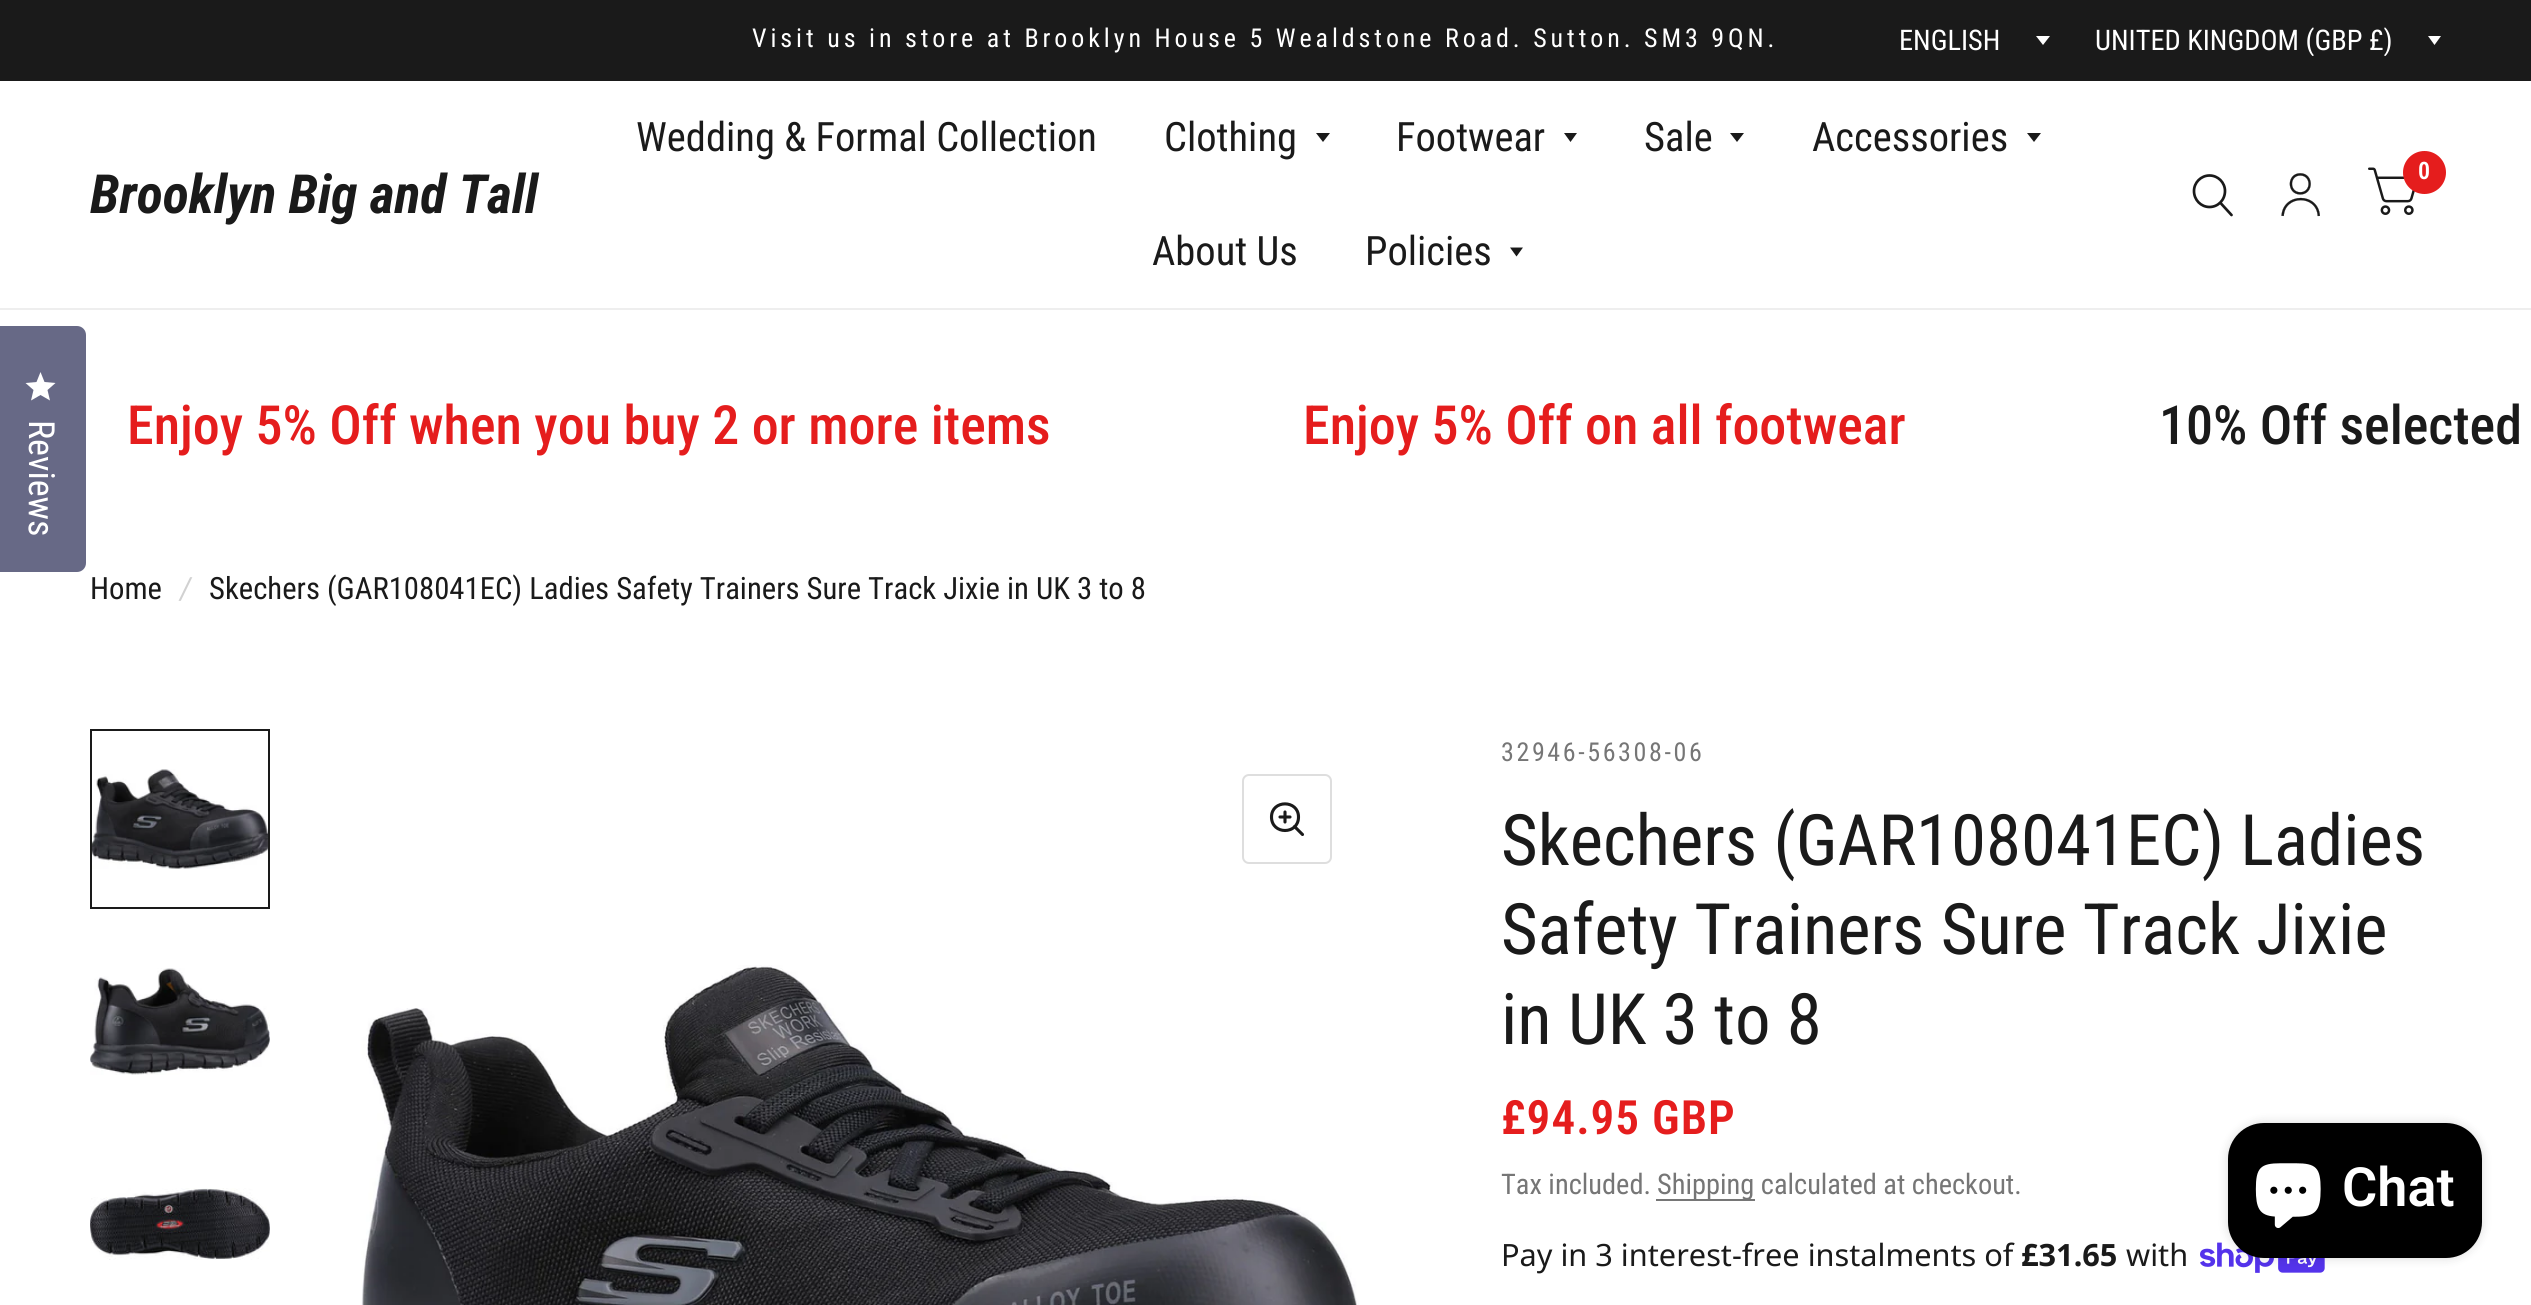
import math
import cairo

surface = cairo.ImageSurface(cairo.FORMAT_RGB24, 2531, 1305)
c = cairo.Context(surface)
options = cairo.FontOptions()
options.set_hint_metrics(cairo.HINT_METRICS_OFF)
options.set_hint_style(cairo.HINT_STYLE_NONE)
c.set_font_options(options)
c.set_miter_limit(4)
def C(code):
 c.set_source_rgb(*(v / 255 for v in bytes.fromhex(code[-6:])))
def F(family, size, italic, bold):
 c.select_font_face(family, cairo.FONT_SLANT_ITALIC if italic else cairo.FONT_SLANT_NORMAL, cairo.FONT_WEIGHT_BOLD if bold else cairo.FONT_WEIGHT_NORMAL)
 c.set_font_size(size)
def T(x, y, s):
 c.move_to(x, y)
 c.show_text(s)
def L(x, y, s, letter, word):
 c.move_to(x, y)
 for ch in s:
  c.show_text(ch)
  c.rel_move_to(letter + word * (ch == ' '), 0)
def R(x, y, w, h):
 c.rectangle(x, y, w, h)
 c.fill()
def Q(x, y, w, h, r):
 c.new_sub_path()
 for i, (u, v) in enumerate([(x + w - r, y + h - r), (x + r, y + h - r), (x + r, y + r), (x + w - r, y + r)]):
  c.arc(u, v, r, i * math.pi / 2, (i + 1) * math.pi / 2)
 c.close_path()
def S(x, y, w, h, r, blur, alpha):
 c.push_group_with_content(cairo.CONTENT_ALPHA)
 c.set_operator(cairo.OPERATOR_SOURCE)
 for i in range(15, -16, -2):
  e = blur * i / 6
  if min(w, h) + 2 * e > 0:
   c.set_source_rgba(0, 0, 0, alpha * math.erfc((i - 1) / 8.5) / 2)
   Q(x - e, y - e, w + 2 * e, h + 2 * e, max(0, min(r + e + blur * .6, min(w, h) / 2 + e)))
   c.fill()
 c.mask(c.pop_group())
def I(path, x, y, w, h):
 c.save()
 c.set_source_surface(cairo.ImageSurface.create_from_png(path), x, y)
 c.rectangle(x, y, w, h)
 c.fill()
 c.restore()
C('ffffff')
c.paint()
C('676986')
c.new_path()
c.move_to(-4,326)
c.line_to(77,326)
c.curve_to(82,326,86,330,86,335)
c.line_to(86,563)
c.curve_to(86,568,82,572,77,572)
c.line_to(-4,572)
c.close_path()
c.fill()
C('ffffff')
c.new_path()
c.move_to(40.5,395)
c.line_to(50,400.5)
c.line_to(47.5,390)
c.line_to(55.5,383)
c.line_to(44.5,382)
c.line_to(40.5,372)
c.line_to(36.5,382)
c.line_to(25.5,383)
c.line_to(33.5,390)
c.line_to(31,400.5)
c.close_path()
c.fill()
F('Roboto Condensed',36,0,0)
c.save()
c.translate(29,420)
c.rotate(90.1 * math.pi / 180)
T(0,0,'Reviews')
c.restore()
C('1a1a1a')
R(0,0,2531,81)
F('Roboto Condensed',26,0,0)
C('ffffff')
L(752,47,'Visit us in store at Brooklyn House 5 Wealdstone Road. Sutton. SM3 9QN.',3.9,-.25)
F('Roboto Condensed',28.4,0,0)
T(1899,50,'ENGLISH')
c.new_path()
c.move_to(2036,36)
c.line_to(2050,36)
c.line_to(2043,45)
c.close_path()
c.fill()
c.save()
c.rectangle(2095,23,324,33)
c.clip()
T(2095,50,'UNITED KINGDOM (GBP £)')
c.restore()
c.new_path()
c.move_to(2428,36)
c.line_to(2441,36)
c.line_to(2434.5,45)
c.close_path()
c.fill()
C('eeeeee')
R(0,308,2531,2)
F('Roboto Condensed',54,1,1)
C('1a1a1a')
T(90,213,'Brooklyn Big and Tall')
F('Roboto Condensed',40.5,0,0)
T(636,151,'Wedding & Formal Collection')
T(1164,151,'Clothing')
c.new_path()
c.move_to(1316,133)
c.line_to(1330,133)
c.line_to(1323,142)
c.close_path()
c.fill()
T(1396,151,'Footwear')
c.new_path()
c.move_to(1564,133)
c.line_to(1577,133)
c.line_to(1570.5,142)
c.close_path()
c.fill()
T(1644,151,'Sale')
c.new_path()
c.move_to(1730,133)
c.line_to(1744,133)
c.line_to(1737,142)
c.close_path()
c.fill()
T(1812,151,'Accessories')
c.new_path()
c.move_to(2027,133)
c.line_to(2041,133)
c.line_to(2034,142)
c.close_path()
c.fill()
T(1152,265,'About Us')
T(1365,265,'Policies')
c.new_path()
c.move_to(1510,247.5)
c.line_to(1523,247.5)
c.line_to(1516.5,256.5)
c.close_path()
c.fill()
I('1.png',2368,167,47,48)
C('e51d1d')
c.arc(2424.5,172.5,21.5,0,2 * math.pi)
c.fill()
F('Roboto Condensed SemiBold',24,0,0)
C('ffffff')
T(2418,179,'0')
c.new_path()
c.move_to(2221,203.5)
c.line_to(2231.5,215)
c.move_to(2225,191)
c.curve_to(2225,200,2218,207,2209.5,207)
c.curve_to(2201,207,2194,200,2194,191)
c.curve_to(2194,182.5,2201,175.5,2209.5,175.5)
c.curve_to(2218,175.5,2225,182.5,2225,191)
c.close_path()
C('1a1a1a')
c.set_line_width(2.7)
c.set_line_cap(cairo.LINE_CAP_ROUND)
c.set_line_join(cairo.LINE_JOIN_ROUND)
c.stroke()
I('2.png',2281,173,39,44)
F('Roboto Condensed Medium',54,0,0)
C('e51d1d')
T(127,444,'Enjoy 5% Off when you buy 2 or more items')
T(1303,444,'Enjoy 5% Off on all footwear')
C('1a1a1a')
T(2159,444,'10% Off selected')
F('Roboto Condensed',30.7,0,0)
T(90,599,'Home')
F('Roboto Condensed',30.7,1,0)
C('d1d1d1')
T(180,599,'/')
F('Roboto Condensed',30.7,0,0)
C('1a1a1a')
T(209,599,'Skechers (GAR108041EC) Ladies Safety Trainers Sure Track Jixie in UK 3 to 8')
I('3.png',92,769,176,100)
c.rectangle(91,730,178,178)
c.set_line_width(2)
c.set_line_cap(cairo.LINE_CAP_BUTT)
c.set_line_join(cairo.LINE_JOIN_MITER)
c.stroke()
I('4.png',90,968,180,107)
I('5.png',90,1188,180,72)
Q(1243,775,88,88,6)
C('dedede')
c.stroke()
c.new_path()
c.move_to(1280,817)
c.line_to(1290,817)
c.move_to(1285,812)
c.line_to(1285,822)
c.move_to(1294.5,826.5)
c.line_to(1302.5,834.5)
c.move_to(1298.5,817)
c.curve_to(1298.5,835,1271.5,835,1271.5,817)
c.curve_to(1271.5,799.5,1298.5,799.5,1298.5,817)
c.close_path()
C('1a1a1a')
c.set_line_width(3.1)
c.set_line_cap(cairo.LINE_CAP_ROUND)
c.set_line_join(cairo.LINE_JOIN_ROUND)
c.stroke()
I('6.png',361,965,998,340)
F('Roboto Condensed',26,0,0)
C('767676')
L(1501,761,'32946-56308-06',2.6,0)
F('Roboto Condensed',70.9,0,0)
C('1a1a1a')
T(1501,865,'Skechers (GAR108041EC) Ladies')
T(1501,954,'Safety Trainers Sure Track Jixie')
T(1501,1044,'in UK 3 to 8')
F('Roboto Condensed SemiBold',47.25,0,0)
C('e51d1d')
L(1501,1134,'£94.95 GBP',1,0)
F('Roboto Condensed',28.4,0,0)
C('767676')
T(1501,1194,'Tax included.')
R(1656,1199,99,2)
T(1657,1194,'Shipping calculated at checkout.')
F('Noto Sans',30.7,0,0)
C('1a1a1a')
T(1501,1266,'Pay in 3 interest-free instalments of')
F('Noto Sans',30.7,0,1)
T(2021,1266,'£31.65')
F('Noto Sans',30.7,0,0)
T(2126,1266,'with')
I('7.png',2200,1242,125,31)
C('000000')
S(2228,1123,254,135,36,5.5,.15)
C('000000')
Q(2228,1123,254,135,36)
c.fill()
I('8.png',2255,1163,66,65)
F('Roboto SemiBold',54,0,0)
C('ffffff')
T(2342,1206,'Chat')
surface.write_to_png('o.png')
